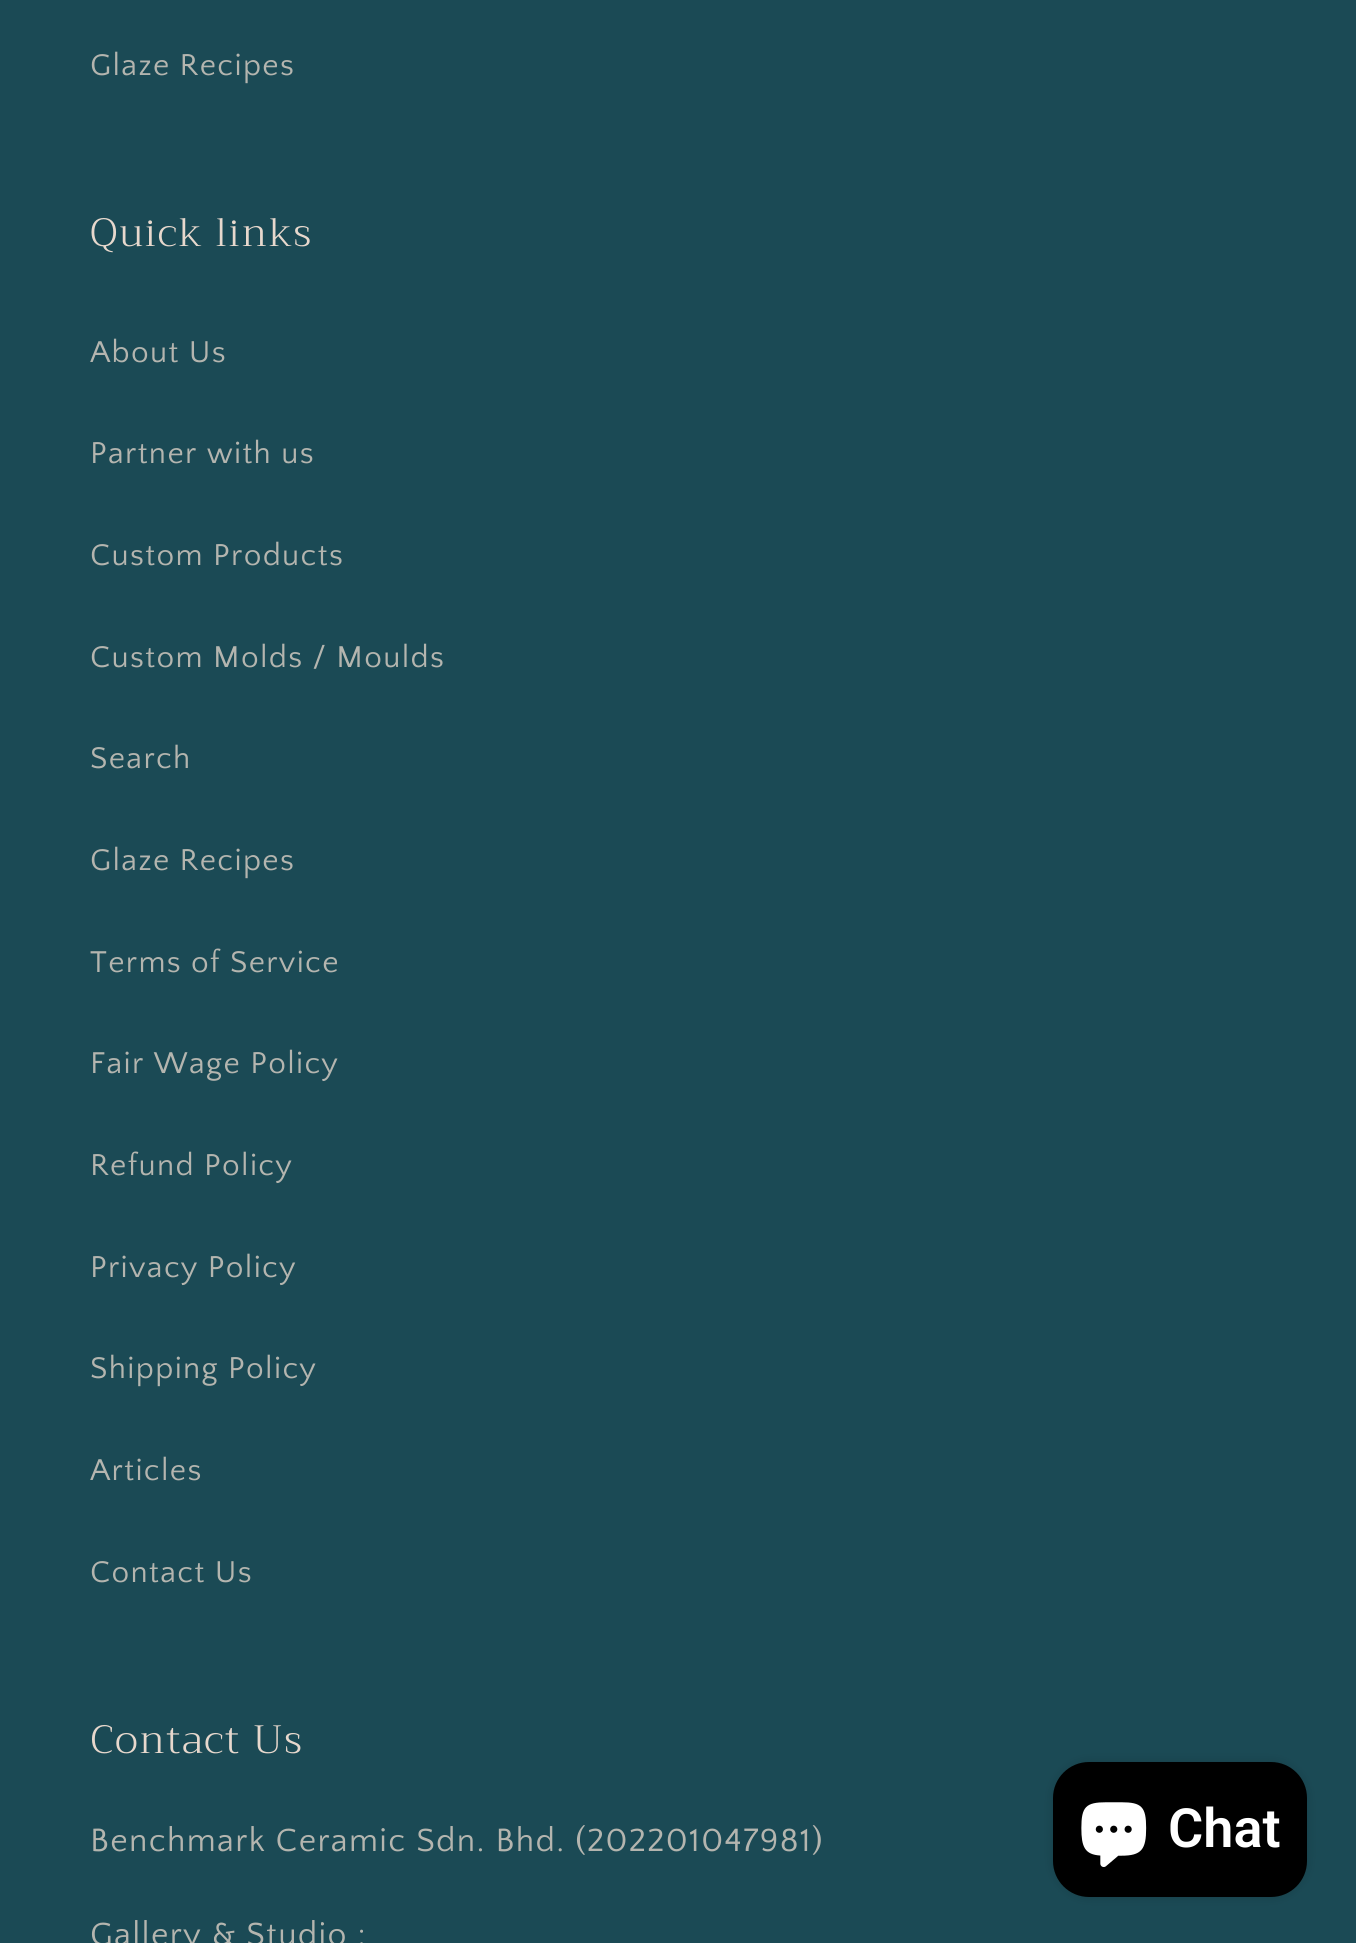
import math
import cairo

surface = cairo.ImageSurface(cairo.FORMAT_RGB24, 1356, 1943)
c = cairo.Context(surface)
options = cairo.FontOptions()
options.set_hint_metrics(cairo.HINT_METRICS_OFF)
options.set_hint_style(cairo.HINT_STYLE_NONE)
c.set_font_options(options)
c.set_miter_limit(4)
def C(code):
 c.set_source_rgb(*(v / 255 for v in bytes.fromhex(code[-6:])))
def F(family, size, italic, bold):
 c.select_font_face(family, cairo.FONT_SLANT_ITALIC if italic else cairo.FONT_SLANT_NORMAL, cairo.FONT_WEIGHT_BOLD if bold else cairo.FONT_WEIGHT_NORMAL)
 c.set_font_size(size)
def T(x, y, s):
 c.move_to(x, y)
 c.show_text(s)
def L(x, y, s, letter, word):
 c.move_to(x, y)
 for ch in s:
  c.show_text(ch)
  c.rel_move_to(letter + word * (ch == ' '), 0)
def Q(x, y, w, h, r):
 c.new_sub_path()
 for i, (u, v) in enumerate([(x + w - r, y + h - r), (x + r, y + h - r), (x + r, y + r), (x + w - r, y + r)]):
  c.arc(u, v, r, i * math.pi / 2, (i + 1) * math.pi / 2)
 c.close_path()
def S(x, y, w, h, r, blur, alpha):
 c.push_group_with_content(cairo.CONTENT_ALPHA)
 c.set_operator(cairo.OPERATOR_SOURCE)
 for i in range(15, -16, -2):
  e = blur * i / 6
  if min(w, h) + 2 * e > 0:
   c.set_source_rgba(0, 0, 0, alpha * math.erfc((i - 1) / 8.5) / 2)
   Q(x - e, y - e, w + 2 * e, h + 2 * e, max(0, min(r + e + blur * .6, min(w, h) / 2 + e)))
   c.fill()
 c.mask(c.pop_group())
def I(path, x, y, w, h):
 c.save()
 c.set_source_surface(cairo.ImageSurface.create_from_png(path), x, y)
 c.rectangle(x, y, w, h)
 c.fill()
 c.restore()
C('1b4a55')
c.paint()
F('Quattrocento Sans',31.5,0,0)
C('b4b5af')
L(90,75,'Glaze Recipes',1.35,0)
F('Trirong Light',39.5,0,0)
C('e7d8cd')
L(90,246,'Quick links',1.5,0)
F('Quattrocento Sans',31.5,0,0)
C('b4b5af')
L(90,362,'About Us',1.35,0)
L(90,463,'Partner with us',1.35,0)
L(90,565,'Custom Products',1.35,0)
L(90,667,'Custom Molds / Moulds',1.35,0)
L(90,768,'Search',1.35,0)
L(90,870,'Glaze Recipes',1.35,0)
L(90,972,'Terms of Service',1.35,0)
L(90,1073,'Fair Wage Policy',1.35,0)
L(90,1175,'Refund Policy',1.35,0)
L(90,1277,'Privacy Policy',1.35,0)
L(90,1378,'Shipping Policy',1.35,0)
L(90,1480,'Articles',1.35,0)
L(90,1582,'Contact Us',1.35,0)
F('Trirong Light',39.5,0,0)
C('e7d8cd')
L(90,1753,'Contact Us',1.5,0)
F('Quattrocento Sans',33.75,0,0)
C('b4b5af')
L(90,1851,'Benchmark Ceramic Sdn. Bhd. (202201047981)',1.35,0)
L(90,1945,'Gallery & Studio :',1.35,0)
C('000000')
S(1053,1762,254,135,36,5.5,.15)
C('000000')
Q(1053,1762,254,135,36)
c.fill()
I('1.png',1081,1802,66,65)
F('Roboto SemiBold',54,0,0)
C('ffffff')
T(1168,1847,'Chat')
surface.write_to_png('o.png')
